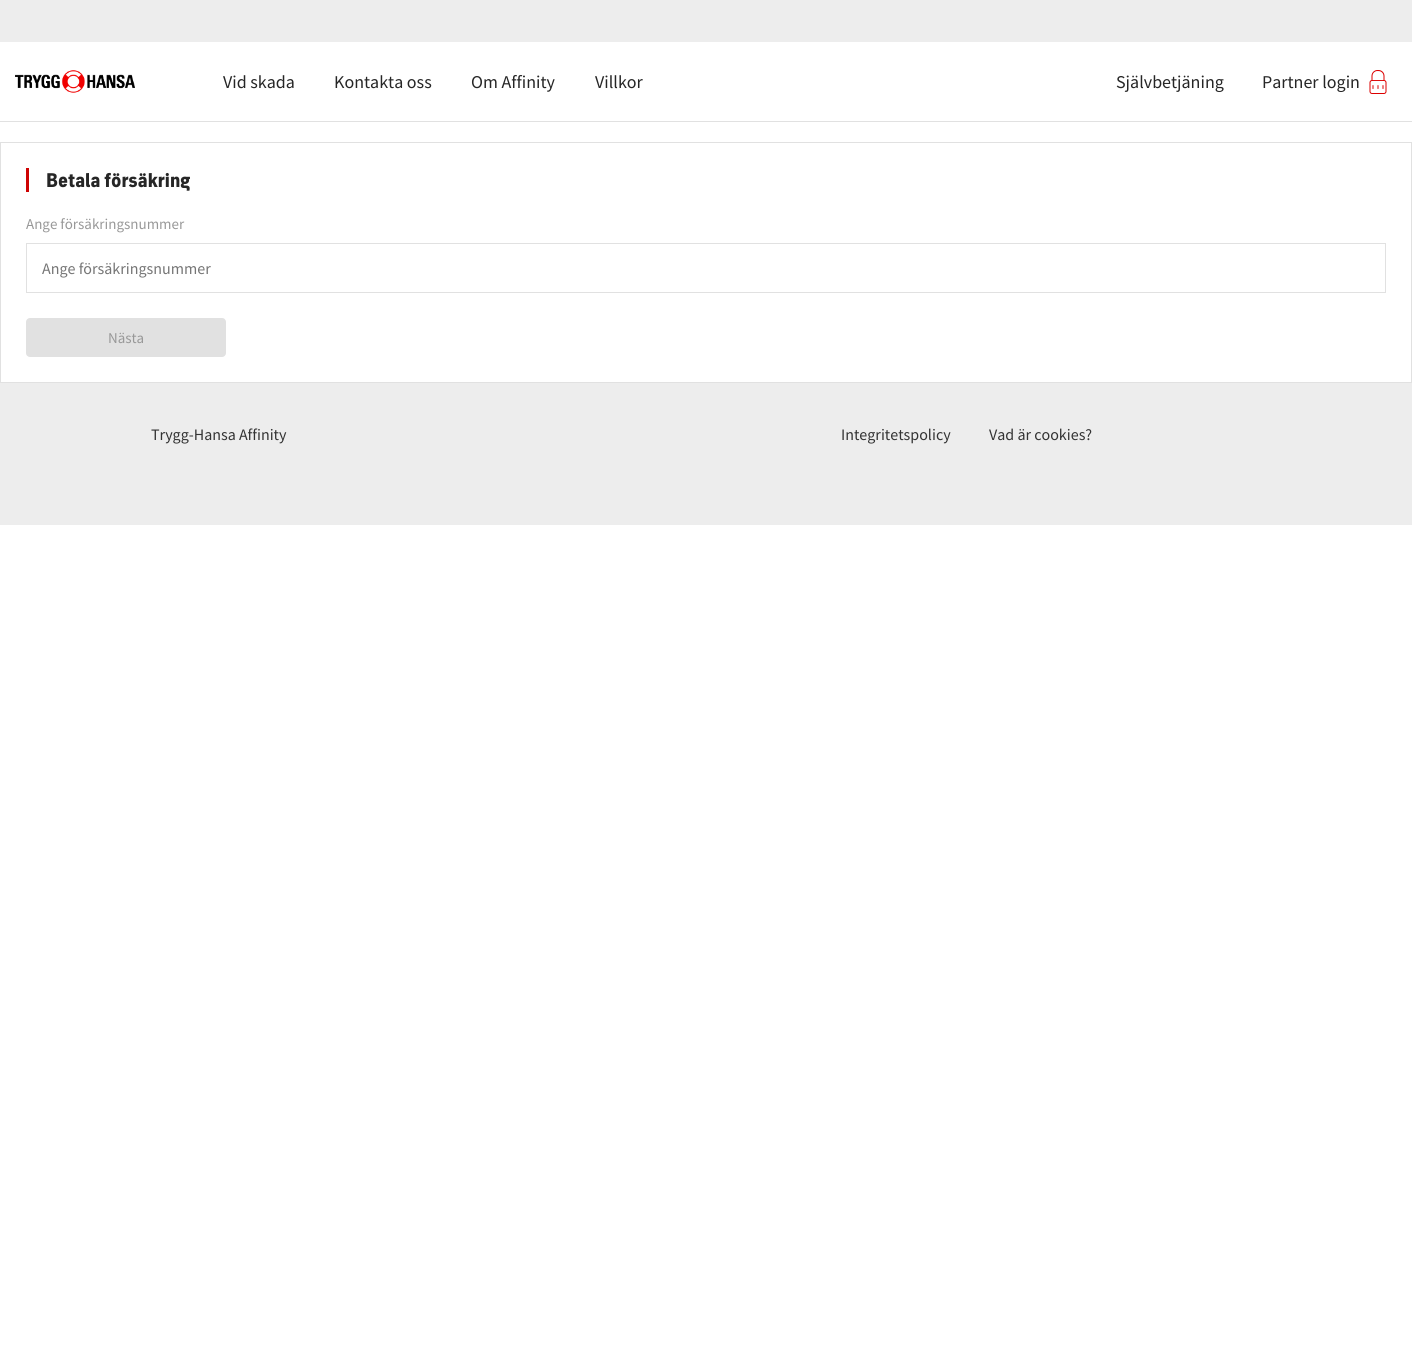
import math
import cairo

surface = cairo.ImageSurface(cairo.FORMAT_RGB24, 1412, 1348)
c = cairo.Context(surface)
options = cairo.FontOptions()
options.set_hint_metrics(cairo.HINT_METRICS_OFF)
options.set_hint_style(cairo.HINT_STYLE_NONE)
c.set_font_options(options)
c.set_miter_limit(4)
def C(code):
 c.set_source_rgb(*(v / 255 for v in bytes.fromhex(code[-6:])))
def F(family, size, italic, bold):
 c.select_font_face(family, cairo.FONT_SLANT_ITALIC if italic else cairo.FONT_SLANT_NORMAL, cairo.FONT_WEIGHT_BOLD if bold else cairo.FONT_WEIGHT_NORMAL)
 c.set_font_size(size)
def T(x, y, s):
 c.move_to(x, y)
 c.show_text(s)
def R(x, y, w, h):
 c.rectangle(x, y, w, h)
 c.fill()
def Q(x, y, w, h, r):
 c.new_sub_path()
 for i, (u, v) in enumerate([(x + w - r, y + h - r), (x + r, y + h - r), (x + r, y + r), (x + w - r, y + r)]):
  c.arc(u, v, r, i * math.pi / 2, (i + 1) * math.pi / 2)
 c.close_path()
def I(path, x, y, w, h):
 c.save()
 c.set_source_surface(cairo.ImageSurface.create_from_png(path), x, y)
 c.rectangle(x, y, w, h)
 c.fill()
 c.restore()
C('ffffff')
c.paint()
C('e1e1e1')
R(0,121,1412,1)
C('ededed')
R(0,0,1412,42)
I('1.png',15,70,120,23)
F('Source Sans Pro',18,0,0)
C('262626')
T(223,88,'Vid skada')
T(334,88,'Kontakta oss')
T(471,88,'Om Affinity')
T(595,88,'Villkor')
T(1116,88,'Självbetjäning')
T(1262,88,'Partner login')
I('2.png',1369,70,18,24)
c.rectangle(.5,142.5,1411,240)
C('e1e1e1')
c.set_line_width(1)
c.stroke()
C('ce0303')
R(26,168,3,24)
F('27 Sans',20,0,1)
C('262626')
T(46,187,'Betala försäkring')
F('Source Sans Pro',15,0,0)
C('989898')
T(26,229,'Ange försäkringsnummer')
c.rectangle(26.5,243.5,1359,49)
C('e1e1e1')
c.stroke()
F('Source Sans Pro',16,0,0)
C('757575')
T(42,274,'Ange försäkringsnummer')
C('e1e1e1')
Q(26,318,200,39,4)
c.fill()
F('Source Sans Pro',15,0,0)
C('989898')
T(108,343,'Nästa')
C('ededed')
R(0,383,1412,142)
F('Source Sans Pro',16,0,0)
C('333333')
T(151,440,'Trygg-Hansa Affinity')
T(841,440,'Integritetspolicy')
T(989,440,'Vad är cookies?')
surface.write_to_png('o.png')
